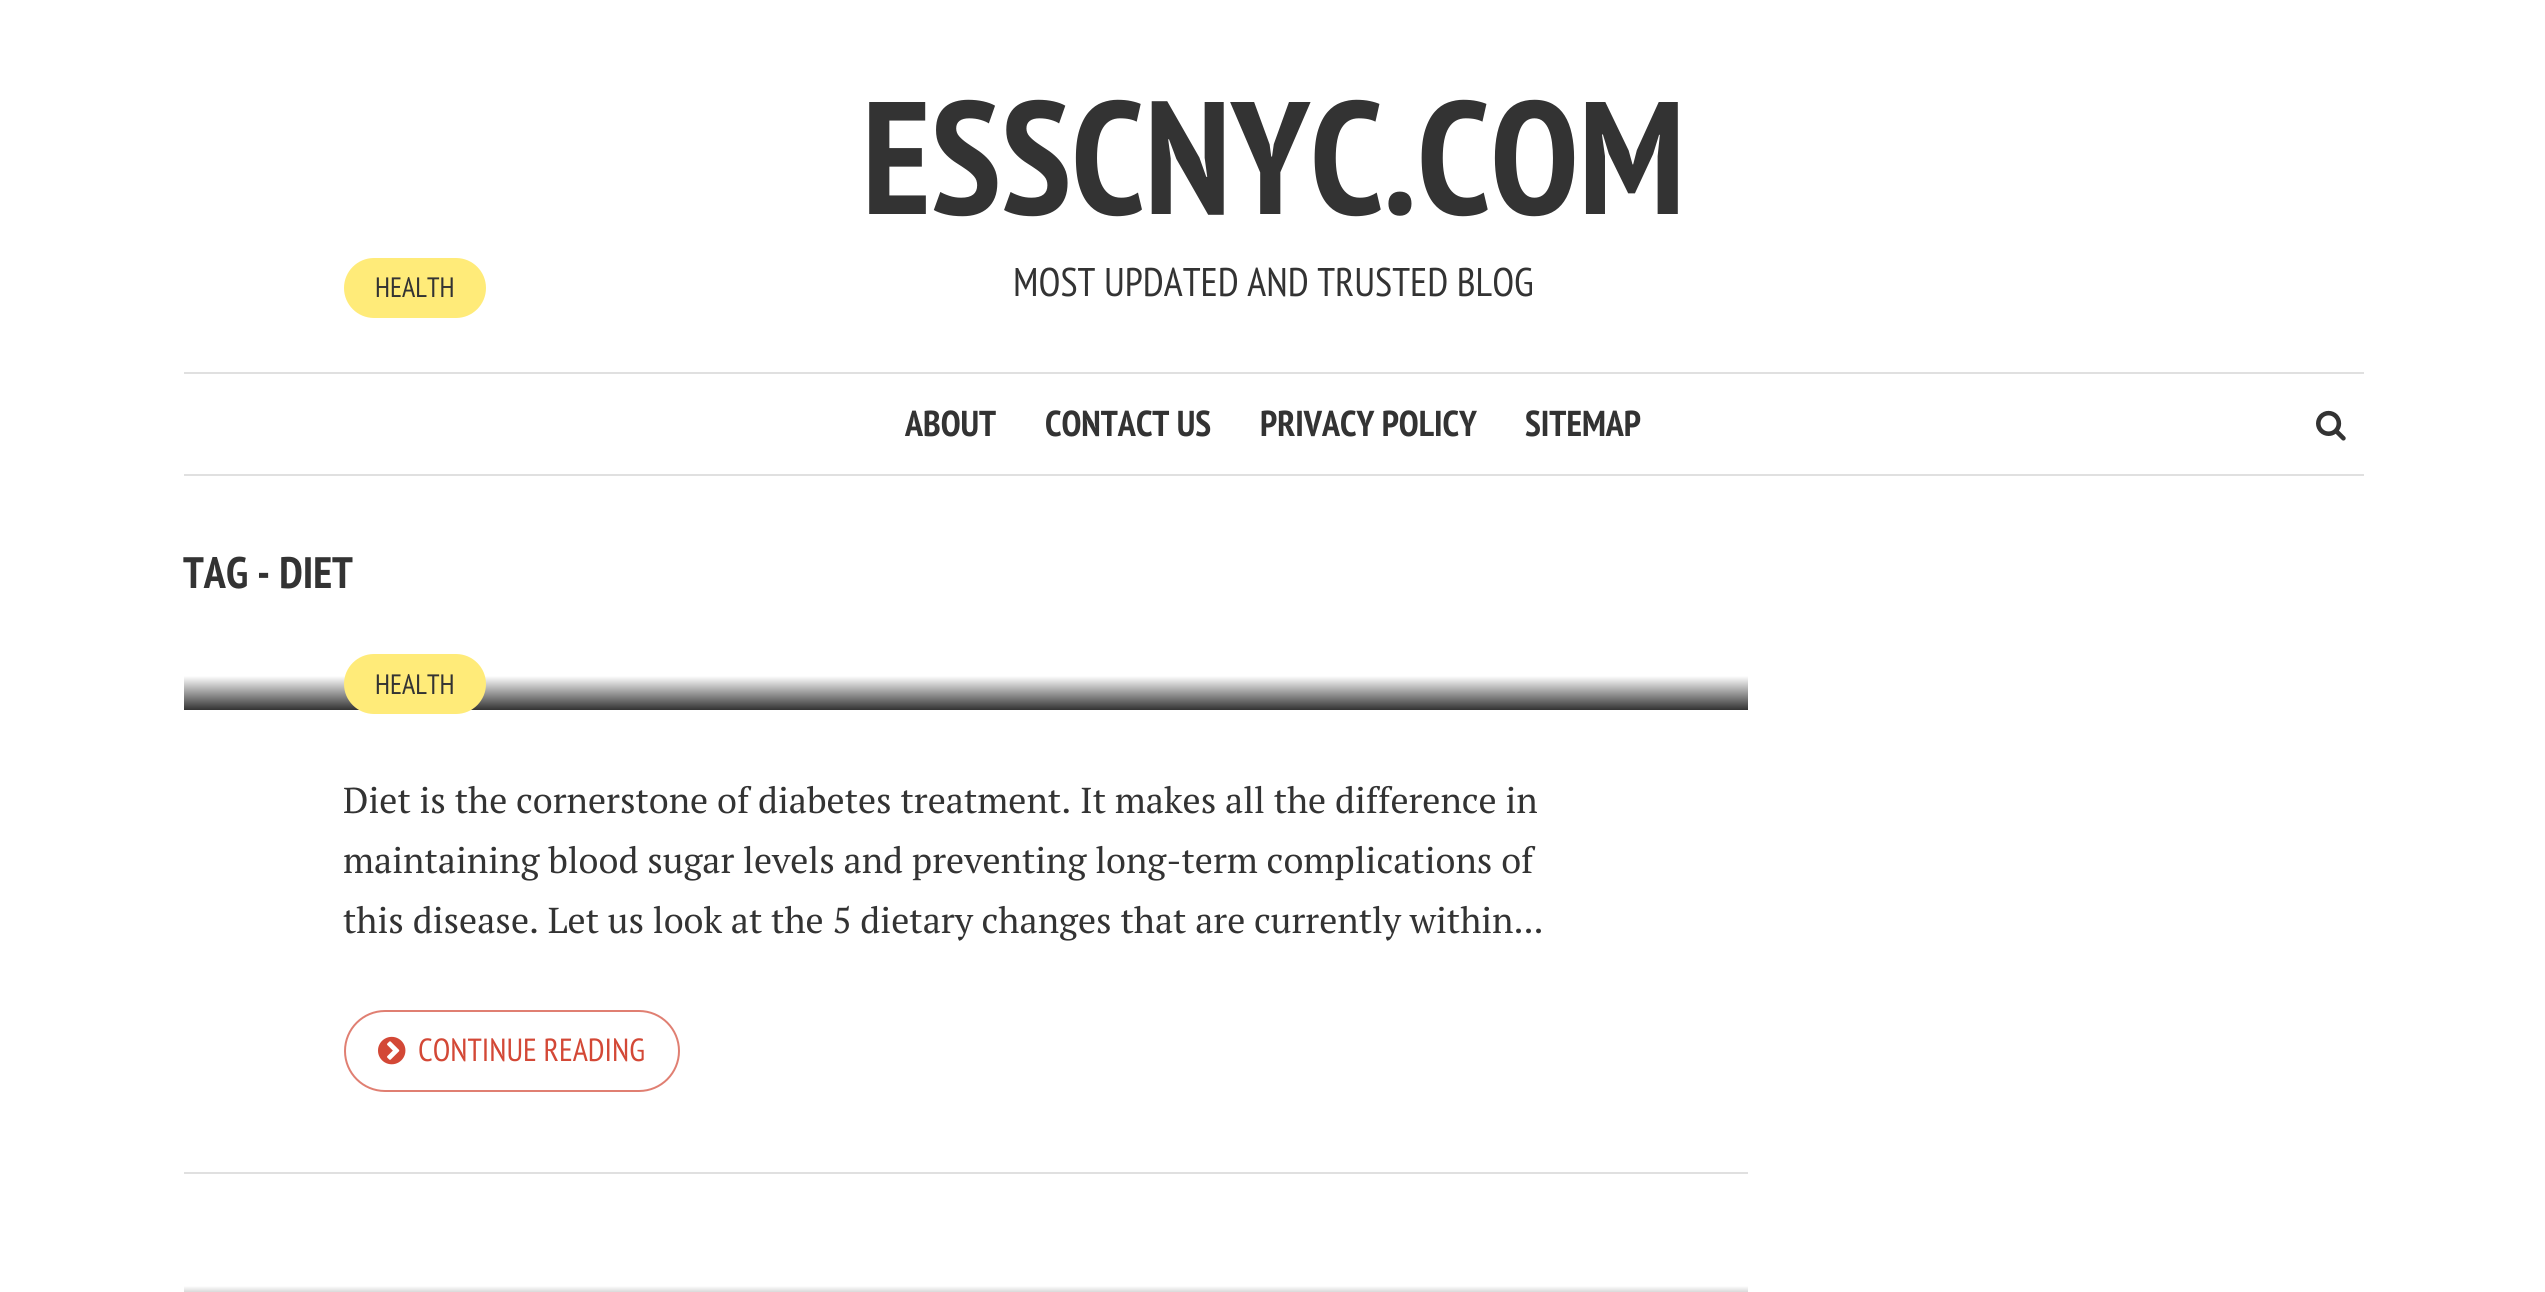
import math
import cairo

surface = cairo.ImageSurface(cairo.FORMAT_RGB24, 2545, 1292)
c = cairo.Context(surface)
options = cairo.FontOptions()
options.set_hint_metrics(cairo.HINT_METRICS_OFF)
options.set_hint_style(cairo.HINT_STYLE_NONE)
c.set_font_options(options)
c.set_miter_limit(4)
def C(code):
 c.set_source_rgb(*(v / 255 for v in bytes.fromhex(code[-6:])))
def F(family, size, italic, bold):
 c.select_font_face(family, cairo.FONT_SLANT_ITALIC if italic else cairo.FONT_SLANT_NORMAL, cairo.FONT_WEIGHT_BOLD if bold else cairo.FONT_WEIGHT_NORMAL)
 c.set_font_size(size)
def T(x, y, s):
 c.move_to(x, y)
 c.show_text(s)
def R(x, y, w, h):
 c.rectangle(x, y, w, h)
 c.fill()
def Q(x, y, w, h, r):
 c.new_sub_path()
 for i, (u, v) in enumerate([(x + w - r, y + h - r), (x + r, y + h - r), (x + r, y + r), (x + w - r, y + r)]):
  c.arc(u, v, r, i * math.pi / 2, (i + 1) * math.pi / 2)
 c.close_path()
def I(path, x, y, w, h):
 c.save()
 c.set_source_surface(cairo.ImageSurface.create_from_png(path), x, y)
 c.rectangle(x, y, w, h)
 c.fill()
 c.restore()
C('ffffff')
c.paint()
F('PT Sans Narrow',160,0,1)
C('333333')
T(862,214,'ESSCNYC.COM')
F('PT Sans Narrow',40,0,0)
T(1013,296,'MOST UPDATED AND TRUSTED BLOG')
C('e0e0e0')
R(184,372,2180,2)
R(184,474,2180,2)
F('PT Sans Narrow',36,0,1)
C('333333')
T(905,436,'ABOUT')
T(1045,436,'CONTACT US')
T(1260,436,'PRIVACY POLICY')
T(1525,436,'SITEMAP')
I('1.png',2316,410,30,31)
F('PT Sans Narrow',44,0,1)
T(183,588,'TAG - DIET')
C('e0e0e0')
R(184,1172,1564,2)
C('ffeb79')
Q(344,258,142,60,30)
c.fill()
F('PT Sans Narrow',28,0,0)
C('333333')
T(375,297,'HEALTH')
gradient = cairo.LinearGradient(966,676,966,710)
gradient.add_color_stop_rgba(0,1,1,1,1)
gradient.add_color_stop_rgba(1,0.2,0.2,0.2,1)
c.set_source(gradient)
R(184,676,1564,34)
F('PT Serif',36,0,0)
C('333333')
T(343,813,'Diet is the cornerstone of diabetes treatment. It makes all the difference in')
T(343,873,'maintaining blood sugar levels and preventing long-term complications of')
T(343,933,'this disease. Let us look at the 5 dietary changes that are currently within...')
Q(345,1011,334,80,40)
C('e07f72')
c.stroke()
I('2.png',378,1036,28,29)
F('PT Sans Narrow',32,0,0)
C('d34836')
T(418,1061,'CONTINUE READING')
C('ffeb79')
Q(344,654,142,60,30)
c.fill()
F('PT Sans Narrow',28,0,0)
C('333333')
T(375,694,'HEALTH')
gradient = cairo.LinearGradient(966,1286,966,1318)
gradient.add_color_stop_rgba(0,1,1,1,1)
gradient.add_color_stop_rgba(1,0.2,0.2,0.2,1)
c.set_source(gradient)
R(184,1286,1564,6)
surface.write_to_png('o.png')
